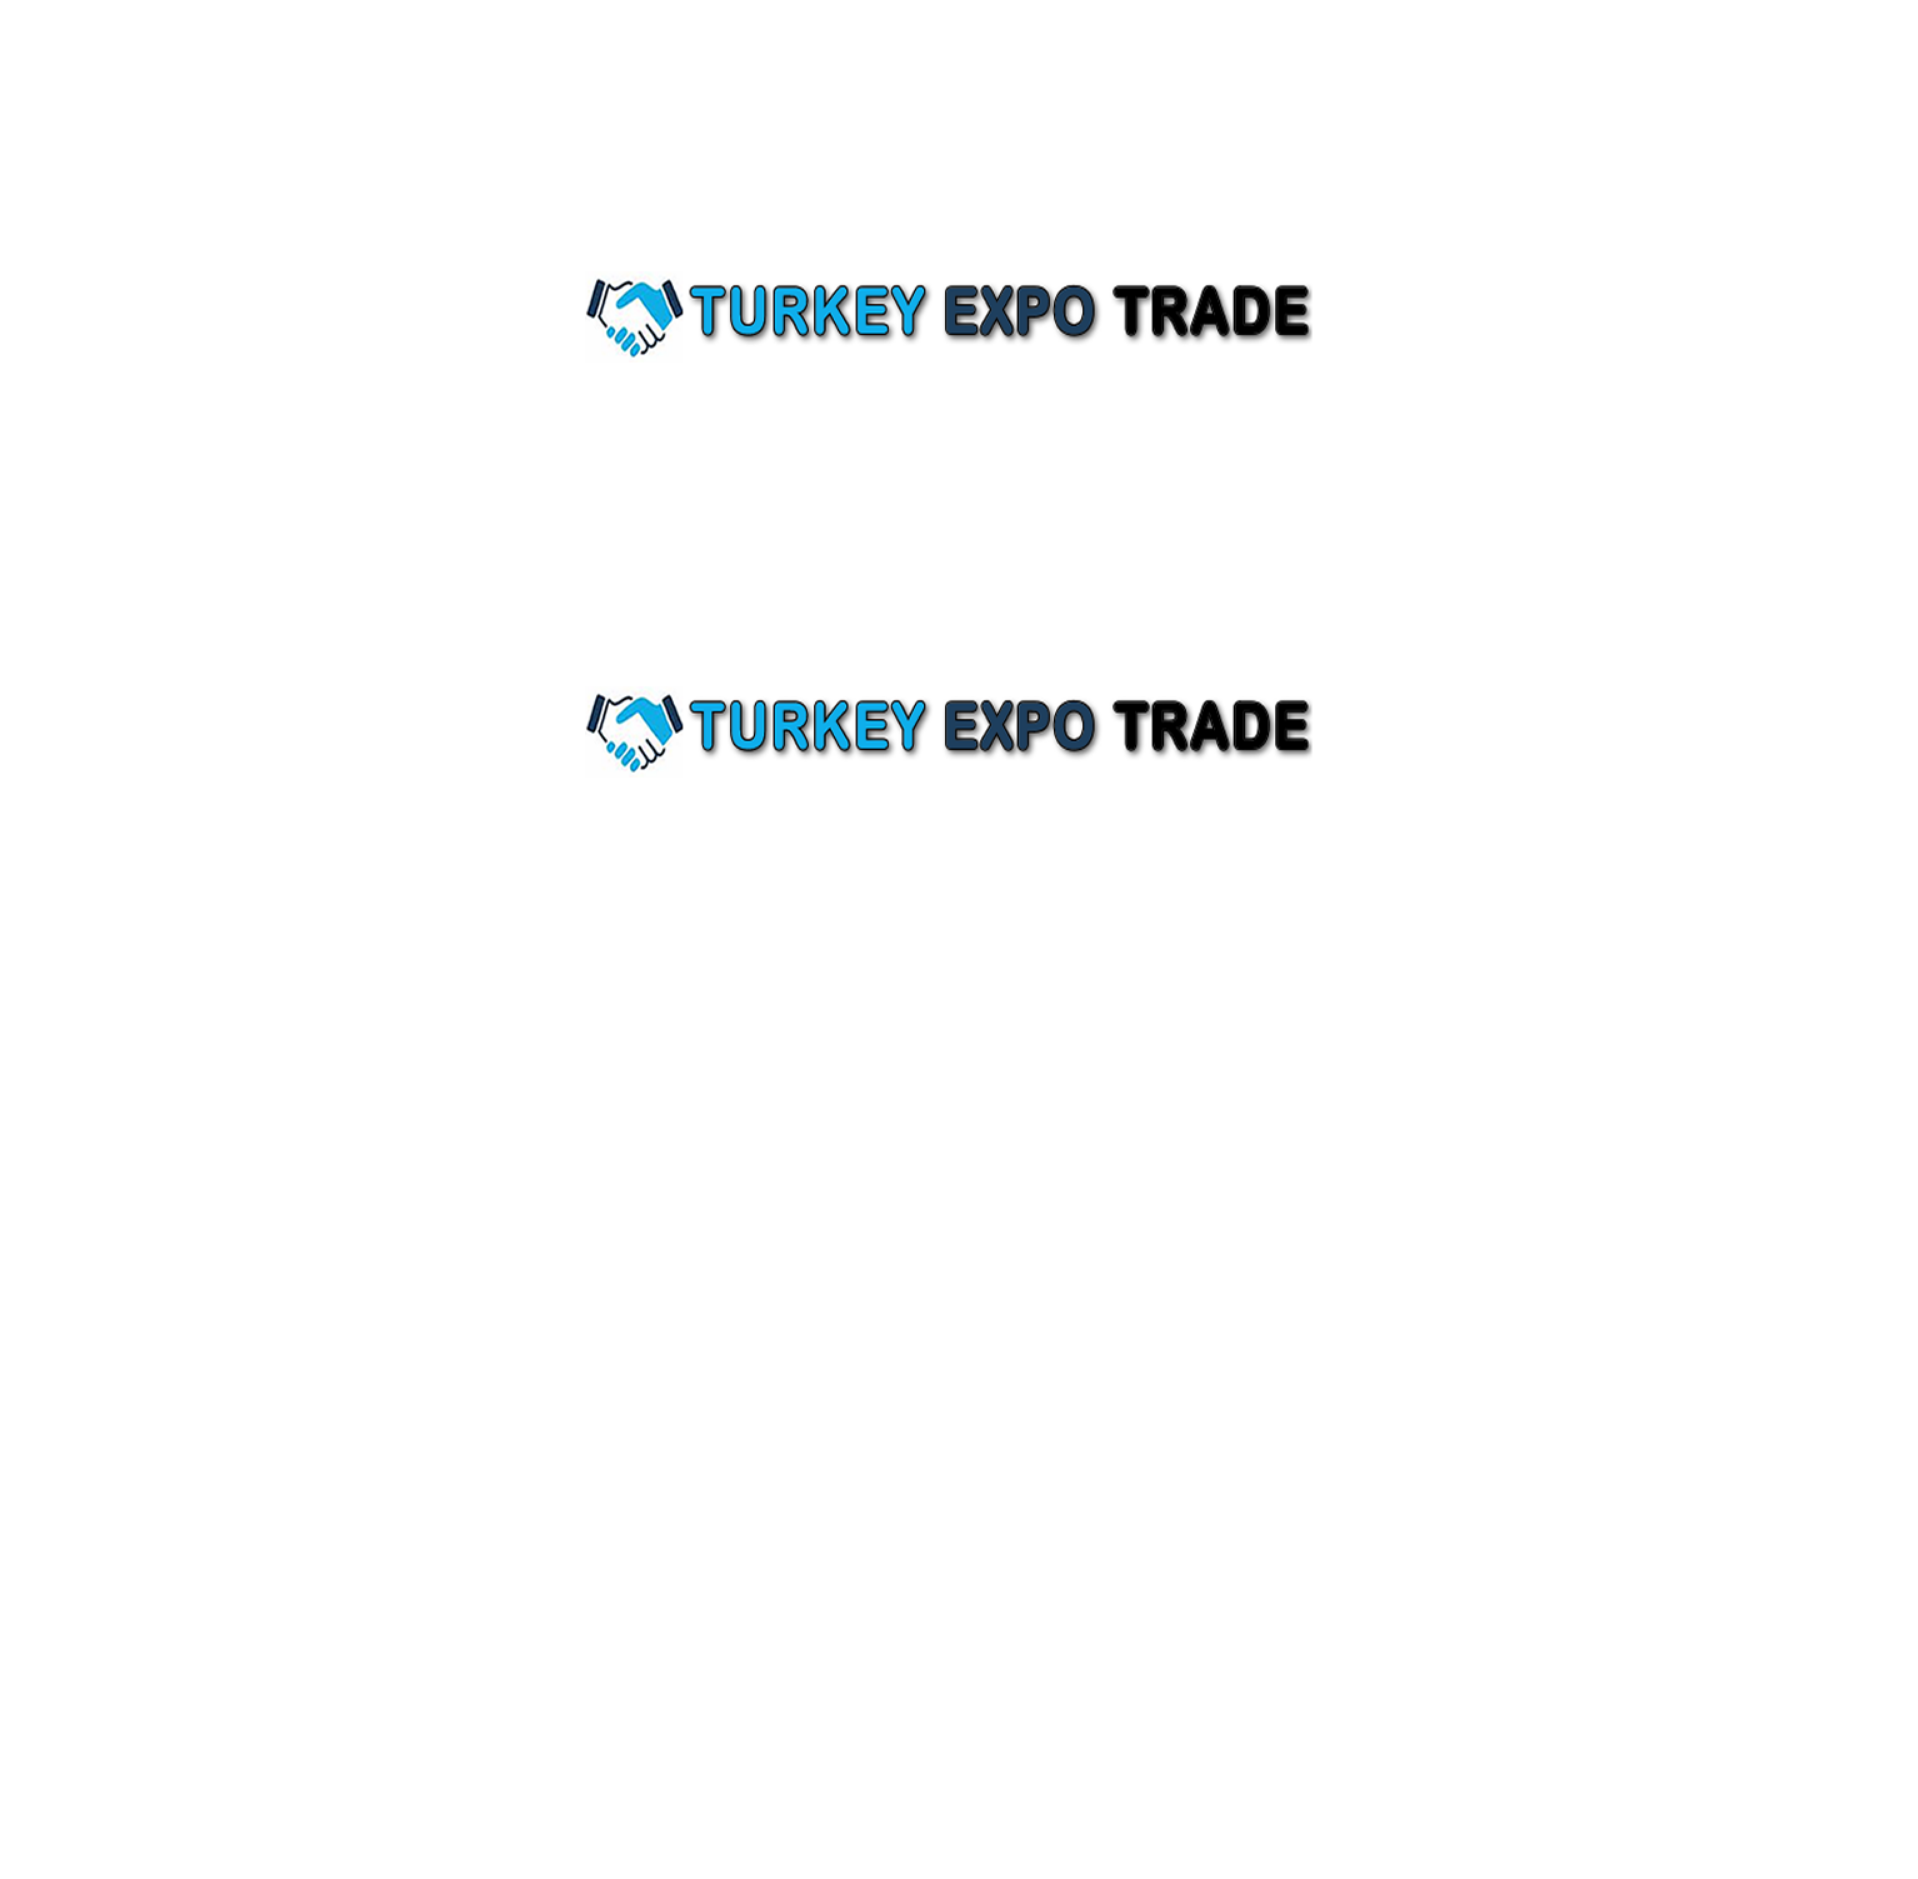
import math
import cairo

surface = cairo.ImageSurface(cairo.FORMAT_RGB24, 1918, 1879)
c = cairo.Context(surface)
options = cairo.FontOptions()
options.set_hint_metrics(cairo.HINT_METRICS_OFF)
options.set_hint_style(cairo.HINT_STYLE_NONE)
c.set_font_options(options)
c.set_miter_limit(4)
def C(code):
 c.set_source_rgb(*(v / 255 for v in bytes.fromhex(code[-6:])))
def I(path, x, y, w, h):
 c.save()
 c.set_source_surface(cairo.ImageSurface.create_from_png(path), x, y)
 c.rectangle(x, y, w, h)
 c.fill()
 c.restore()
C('ffffff')
c.paint()
I('1.png',585,271,728,92)
I('1.png',585,686,728,92)
surface.write_to_png('o.png')
